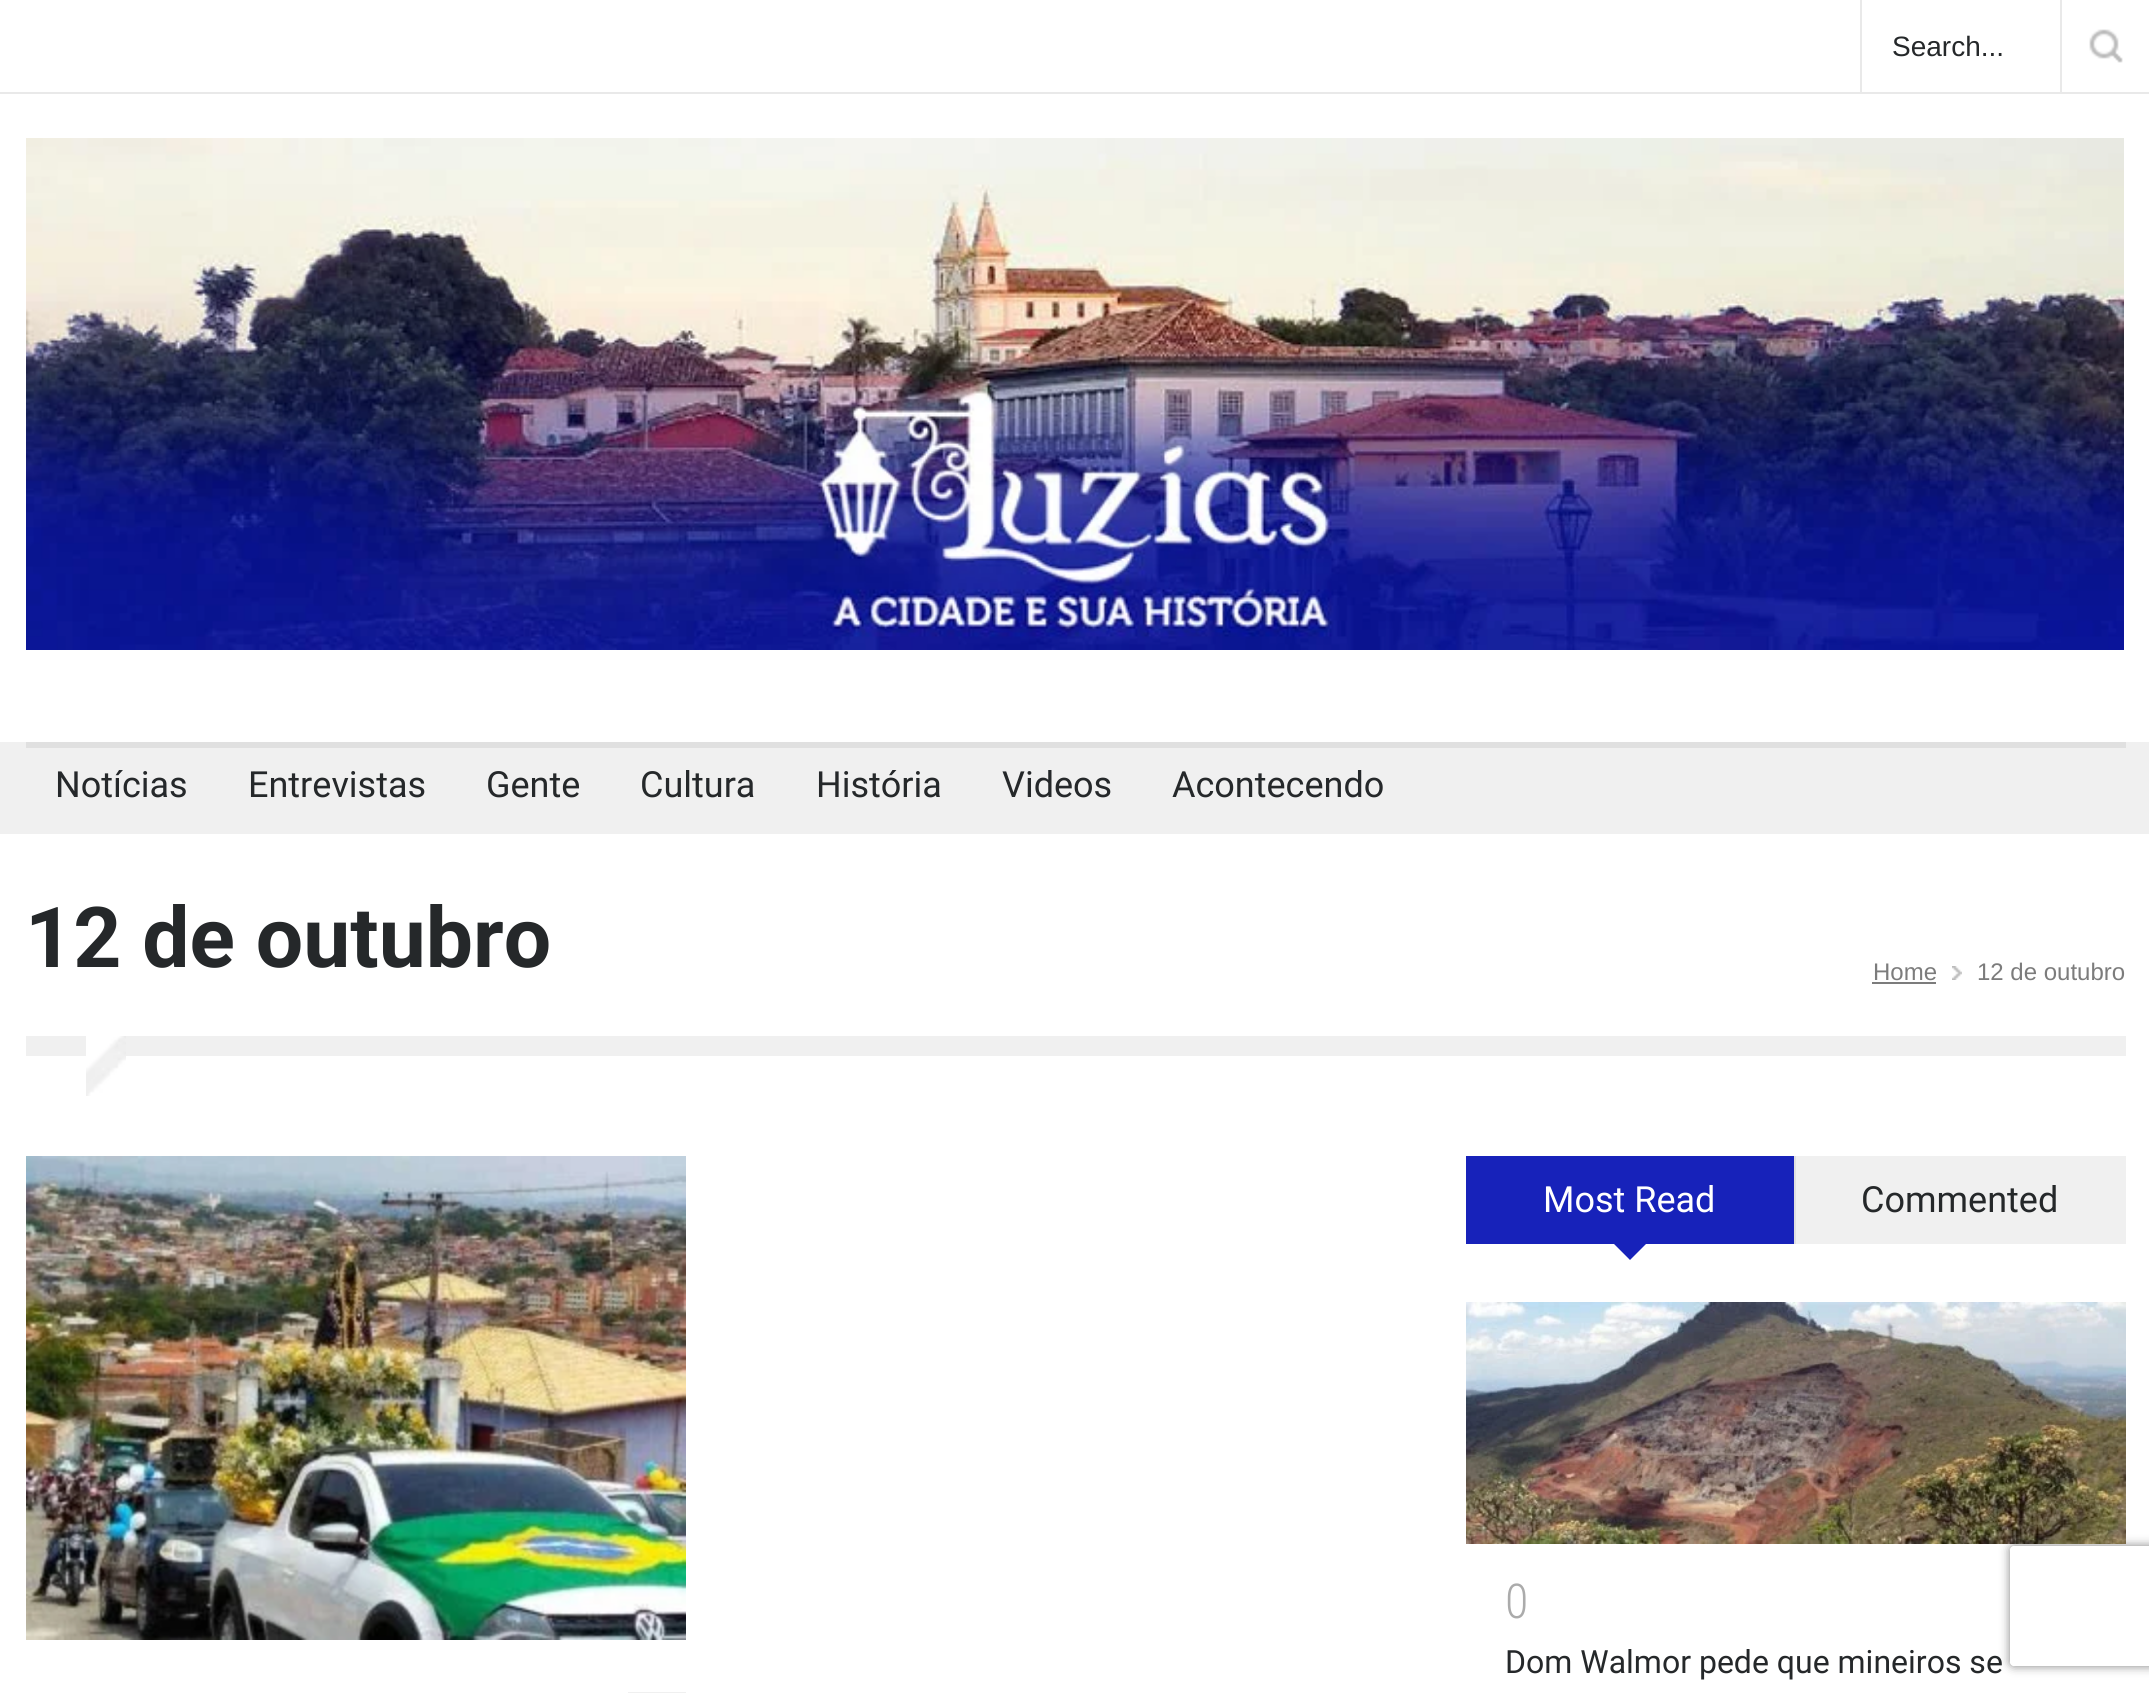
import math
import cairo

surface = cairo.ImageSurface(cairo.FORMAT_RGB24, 2149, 1693)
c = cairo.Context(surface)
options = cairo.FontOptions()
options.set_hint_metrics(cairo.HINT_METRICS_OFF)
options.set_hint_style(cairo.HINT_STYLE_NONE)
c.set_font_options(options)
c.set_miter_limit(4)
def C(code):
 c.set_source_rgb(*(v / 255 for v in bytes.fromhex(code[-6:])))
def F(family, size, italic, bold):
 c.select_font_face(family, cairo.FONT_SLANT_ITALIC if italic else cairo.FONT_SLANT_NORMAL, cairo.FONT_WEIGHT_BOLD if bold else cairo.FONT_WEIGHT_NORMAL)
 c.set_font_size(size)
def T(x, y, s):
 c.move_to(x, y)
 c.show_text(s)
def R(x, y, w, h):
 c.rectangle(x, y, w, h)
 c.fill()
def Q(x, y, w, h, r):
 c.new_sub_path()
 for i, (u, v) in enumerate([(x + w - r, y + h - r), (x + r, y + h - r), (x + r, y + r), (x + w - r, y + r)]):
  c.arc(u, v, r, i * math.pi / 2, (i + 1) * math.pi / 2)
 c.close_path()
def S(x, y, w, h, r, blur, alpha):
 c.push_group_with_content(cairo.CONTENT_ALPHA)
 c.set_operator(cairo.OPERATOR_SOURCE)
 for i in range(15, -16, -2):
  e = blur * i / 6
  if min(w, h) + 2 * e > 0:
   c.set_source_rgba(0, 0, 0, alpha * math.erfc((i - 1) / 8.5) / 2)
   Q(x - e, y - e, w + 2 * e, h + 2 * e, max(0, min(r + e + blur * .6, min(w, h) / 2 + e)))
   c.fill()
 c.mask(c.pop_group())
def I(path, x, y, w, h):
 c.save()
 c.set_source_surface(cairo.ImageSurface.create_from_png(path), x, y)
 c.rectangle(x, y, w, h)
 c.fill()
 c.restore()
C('ffffff')
c.paint()
C('e9e9e9')
R(0,92,2149,2)
R(1860,0,2,92)
R(2060,0,2,92)
F('Liberation Sans',28,0,0)
C('25282a')
T(1892,56,'Search...')
I('1.png',2089,29,34,34)
I('2.png',26,138,2098,512)
C('f0f0f0')
R(0,742,2149,92)
C('e0e0e0')
R(1414,742,712,6)
R(26,742,1388,6)
F('Roboto',36,0,0)
C('25282a')
T(55,797,'Notícias')
T(248,797,'Entrevistas')
T(486,797,'Gente')
T(640,797,'Cultura')
T(816,797,'História')
T(1002,797,'Videos')
T(1172,797,'Acontecendo')
F('Roboto',84,0,1)
T(25,967,'12 de outubro')
F('Liberation Sans',24,0,0)
C('7c7c7c')
T(1873,980,'Home')
R(1872,982,64,2)
I('3.png',1952,966,10,14)
T(1977,980,'12 de outubro')
C('f0f0f0')
R(26,1036,60,20)
I('4.png',86,1036,40,60)
R(126,1036,2000,20)
I('5.png',26,1156,660,484)
R(628,1692,58,1)
C('1722ba')
R(1466,1156,328,88)
C('e0e0e0')
R(1794,1156,2,88)
F('Roboto',36,0,0)
C('ffffff')
T(1543,1212,'Most Read')
C('1722ba')
c.new_path()
c.move_to(1612,1242)
c.line_to(1648,1242)
c.line_to(1630,1260)
c.close_path()
c.fill()
C('f0f0f0')
R(1796,1156,330,88)
C('25282a')
T(1861,1212,'Commented')
c.save()
c.set_fill_rule(cairo.FILL_RULE_EVEN_ODD)
c.new_path()
c.move_to(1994,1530)
c.line_to(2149,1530)
c.line_to(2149,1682)
c.line_to(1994,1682)
c.close_path()
c.move_to(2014,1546)
c.line_to(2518,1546)
c.curve_to(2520,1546,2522,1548,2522,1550)
c.line_to(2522,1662)
c.curve_to(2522,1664,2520,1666,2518,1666)
c.line_to(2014,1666)
c.curve_to(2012,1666,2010,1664,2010,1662)
c.line_to(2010,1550)
c.curve_to(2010,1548,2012,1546,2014,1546)
c.close_path()
c.clip()
C('808080')
S(2010,1546,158,120,4,5,1)
c.restore()
I('6.png',1466,1302,660,242)
F('Roboto Condensed Light',48,0,0)
C('ababab')
T(1505,1618,'0')
F('Roboto',32,0,0)
C('25282a')
T(1505,1673,'Dom Walmor pede que mineiros se')
surface.write_to_png('o.png')
